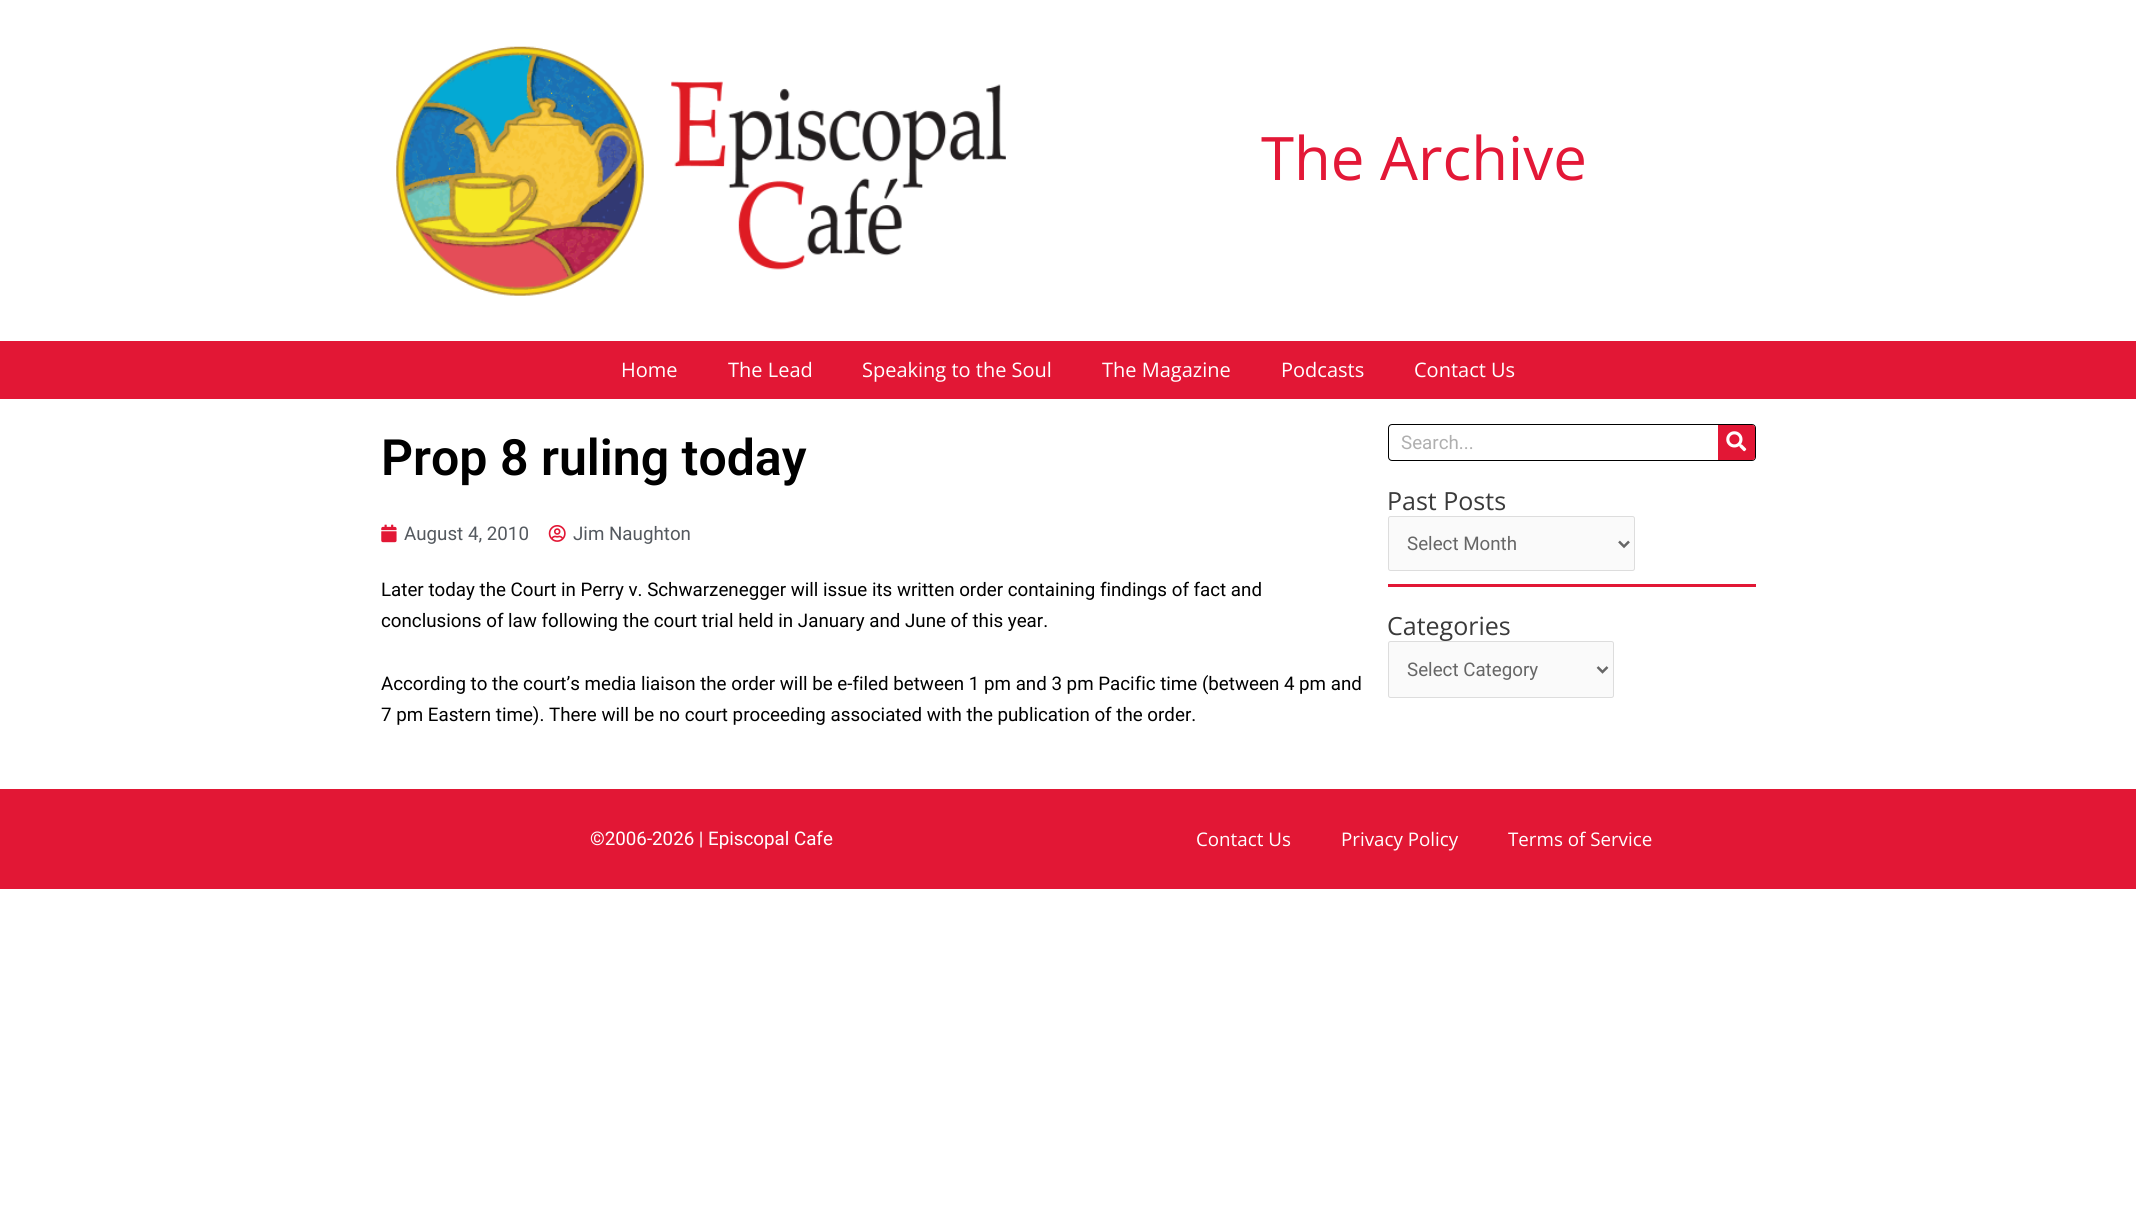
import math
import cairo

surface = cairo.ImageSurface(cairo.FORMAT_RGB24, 2136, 1230)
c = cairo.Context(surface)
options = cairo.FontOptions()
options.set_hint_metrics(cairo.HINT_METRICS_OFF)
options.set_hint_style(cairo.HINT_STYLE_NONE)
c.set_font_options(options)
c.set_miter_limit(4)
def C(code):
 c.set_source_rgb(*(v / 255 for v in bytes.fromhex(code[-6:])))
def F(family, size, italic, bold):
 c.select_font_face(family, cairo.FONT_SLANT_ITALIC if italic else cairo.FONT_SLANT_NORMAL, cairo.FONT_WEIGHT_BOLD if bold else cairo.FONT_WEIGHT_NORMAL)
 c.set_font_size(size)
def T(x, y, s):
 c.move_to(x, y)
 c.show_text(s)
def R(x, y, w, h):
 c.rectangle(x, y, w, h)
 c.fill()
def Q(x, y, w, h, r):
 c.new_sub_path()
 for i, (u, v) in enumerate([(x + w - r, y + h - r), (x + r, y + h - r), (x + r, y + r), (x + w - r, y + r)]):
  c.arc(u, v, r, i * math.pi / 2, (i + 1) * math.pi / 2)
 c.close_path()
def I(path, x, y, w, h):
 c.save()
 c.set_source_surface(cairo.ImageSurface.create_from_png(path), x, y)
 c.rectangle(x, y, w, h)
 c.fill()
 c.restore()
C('ffffff')
c.paint()
I('1.png',396,46,610,250)
F('Open Sans',60,0,0)
C('e31837')
T(1261,180,'The Archive')
C('e21735')
R(0,341,2136,58)
F('Open Sans',20,0,0)
C('ffffff')
T(621,377,'Home')
T(728,377,'The Lead')
T(862,377,'Speaking to the Soul')
T(1102,377,'The Magazine')
T(1281,377,'Podcasts')
T(1414,377,'Contact Us')
F('Roboto SemiBold',50,0,0)
C('000000')
T(381,475,'Prop 8 ruling today')
I('2.png',381,524,16,19)
F('Roboto',18.75,0,0)
C('54595f')
T(404,540,'August 4, 2010')
I('3.png',548,525,18,17)
T(573,540,'Jim Naughton')
C('000000')
T(381,596,'Later today the Court in Perry v. Schwarzenegger will issue its written order containing findings of fact and')
T(381,627,'conclusions of law following the court trial held in January and June of this year.')
T(381,690,'According to the court’s media liaison the order will be e-filed between 1 pm and 3 pm Pacific time (between 4 pm and')
T(381,721,'7 pm Eastern time). There will be no court proceeding associated with the publication of the order.')
Q(1388.5,424.5,367,36,3.5)
c.set_line_width(1)
c.stroke()
C('afafaf')
T(1401,449,'Search...')
C('e21735')
c.new_path()
c.move_to(1718,425)
c.line_to(1752.5,425)
c.curve_to(1754,425,1755,426,1755,427.5)
c.line_to(1755,457.5)
c.curve_to(1755,459,1754,460,1752.5,460)
c.line_to(1718,460)
c.close_path()
c.fill()
I('4.png',1726,431,21,21)
R(1388,584,368,3)
F('Open Sans',25,0,0)
C('3a3a3a')
T(1387,510,'Past Posts')
C('fafafa')
Q(1388.5,516.5,246,54,2)
c.fill_preserve()
C('dddddd')
c.stroke()
c.new_path()
c.move_to(1619,541.5)
c.line_to(1624,546.5)
c.line_to(1629,541.5)
C('666666')
c.set_line_width(2.5)
c.stroke()
F('Roboto',18.75,0,0)
T(1407,550,'Select Month')
F('Open Sans',25,0,0)
C('3a3a3a')
T(1387,635,'Categories')
C('fafafa')
Q(1388.5,641.5,225,56,2)
c.fill_preserve()
C('dddddd')
c.set_line_width(1)
c.stroke()
c.new_path()
c.move_to(1597.5,667)
c.line_to(1602.5,672)
c.line_to(1607.5,667)
C('666666')
c.set_line_width(2.5)
c.stroke()
F('Roboto',18.75,0,0)
T(1407,676,'Select Category')
C('e21735')
R(0,789,2136,100)
C('ffffff')
T(590,845,'©2006-2026 | Episcopal Cafe')
F('Open Sans',18.75,0,0)
T(1196,846,'Contact Us')
T(1341,846,'Privacy Policy')
T(1508,846,'Terms of Service')
surface.write_to_png('o.png')
